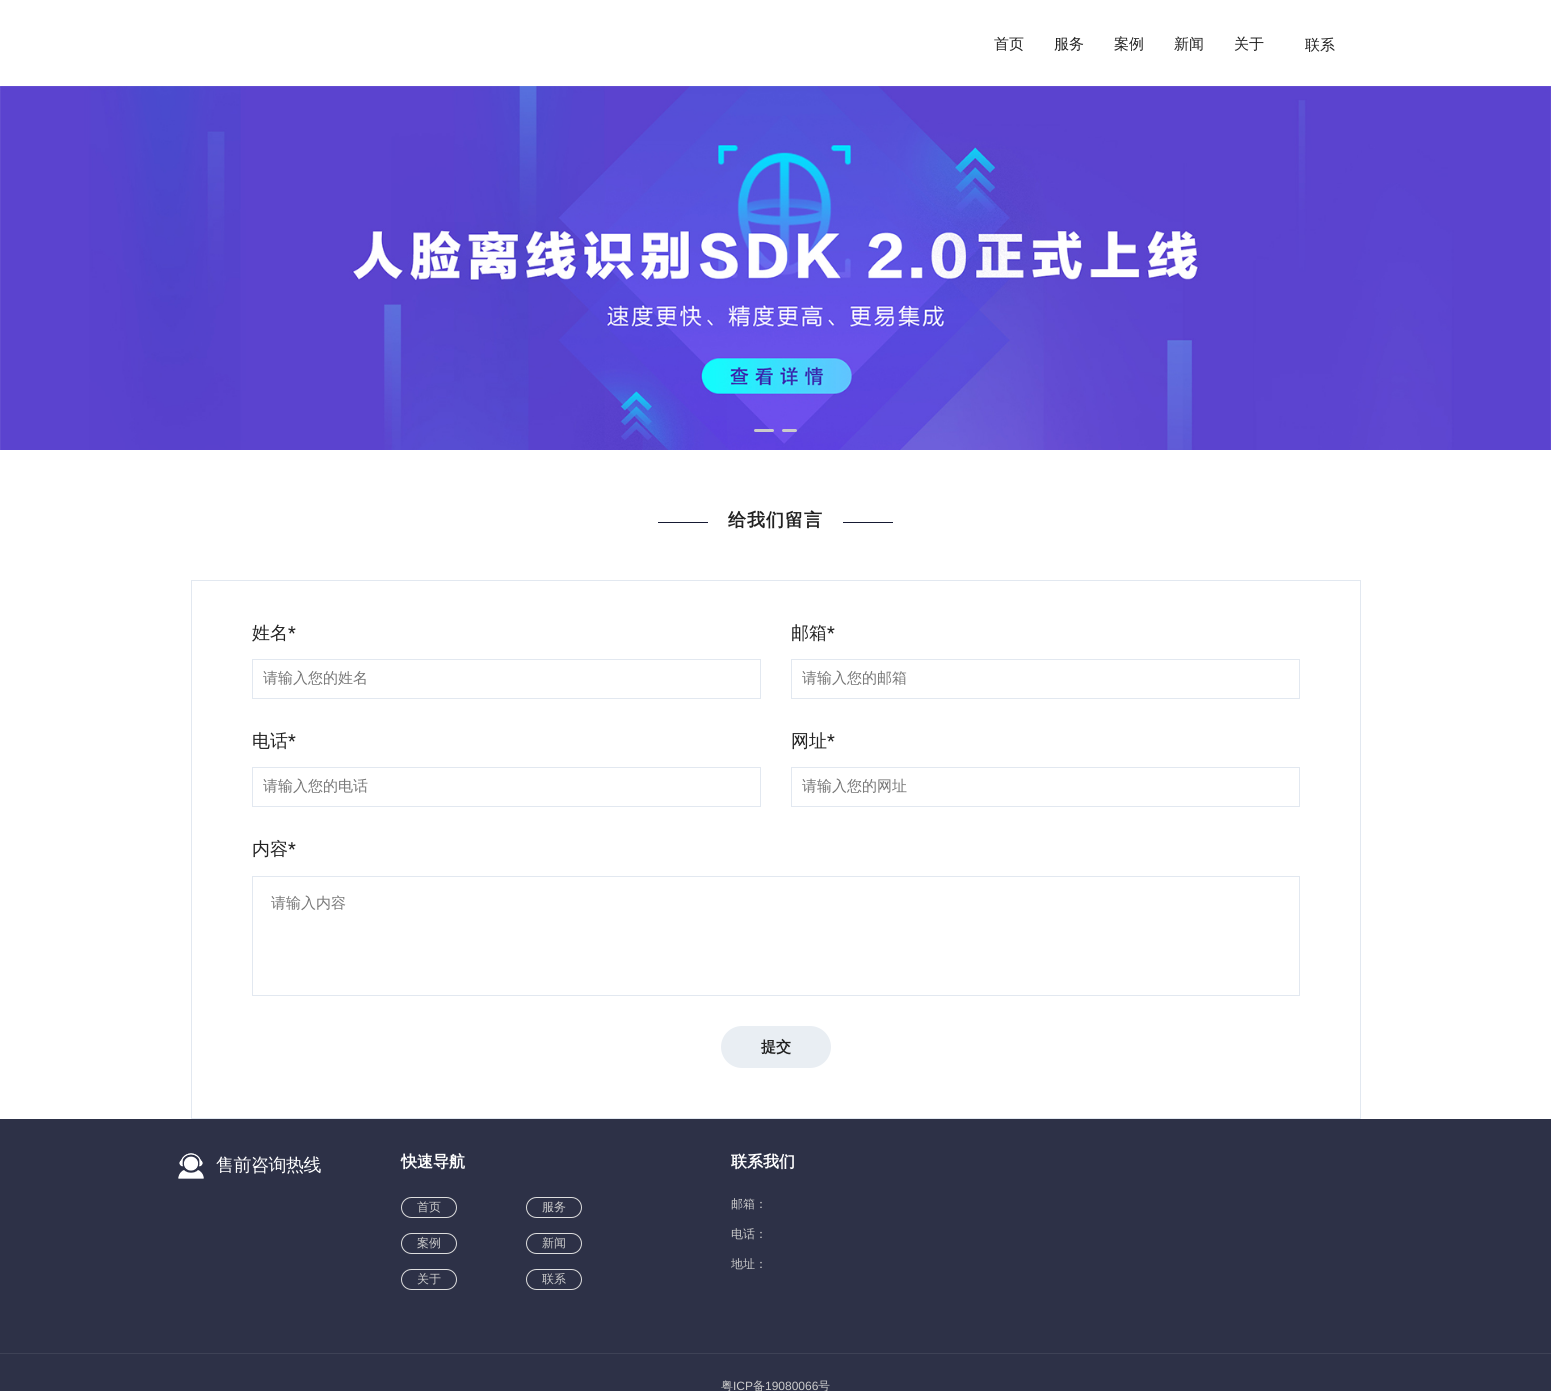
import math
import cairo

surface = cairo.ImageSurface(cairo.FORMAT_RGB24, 1551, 1391)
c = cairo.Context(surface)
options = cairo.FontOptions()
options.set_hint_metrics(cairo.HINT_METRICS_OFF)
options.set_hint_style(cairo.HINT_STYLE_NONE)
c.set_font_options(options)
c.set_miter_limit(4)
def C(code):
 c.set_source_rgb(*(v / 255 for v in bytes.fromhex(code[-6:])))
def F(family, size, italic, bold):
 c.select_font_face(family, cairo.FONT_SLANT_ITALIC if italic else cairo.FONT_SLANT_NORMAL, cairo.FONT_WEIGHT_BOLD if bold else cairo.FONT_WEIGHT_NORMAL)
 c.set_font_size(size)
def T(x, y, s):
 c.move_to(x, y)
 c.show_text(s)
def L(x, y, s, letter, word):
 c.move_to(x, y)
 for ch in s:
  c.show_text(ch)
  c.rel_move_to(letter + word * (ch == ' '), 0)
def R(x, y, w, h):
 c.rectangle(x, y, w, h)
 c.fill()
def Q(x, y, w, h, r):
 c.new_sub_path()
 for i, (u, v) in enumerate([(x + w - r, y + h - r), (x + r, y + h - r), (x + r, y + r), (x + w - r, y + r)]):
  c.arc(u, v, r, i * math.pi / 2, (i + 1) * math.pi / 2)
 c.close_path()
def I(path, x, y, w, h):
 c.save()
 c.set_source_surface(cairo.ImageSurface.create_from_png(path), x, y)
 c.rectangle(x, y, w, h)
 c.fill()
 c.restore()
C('ffffff')
c.paint()
F('WenQuanYi Zen Hei Medium',15,0,0)
C('222222')
T(994,49,'首页')
T(1054,49,'服务')
T(1114,49,'案例')
T(1174,49,'新闻')
T(1234,49,'关于')
T(1305,50,'联系')
I('1.png',0,86,1551,364)
C('cacaca')
Q(754,429,20,3,1.5)
c.fill()
Q(782,429,15,3,1.5)
c.fill()
C('161a33')
R(658,522,50,1)
F('WenQuanYi Zen Hei',18,0,1)
C('222222')
L(728,526,'给我们留言',1,0)
C('161a33')
R(843,522,50,1)
c.rectangle(191.5,580.5,1169,538)
C('e2e8f0')
c.set_line_width(1)
c.stroke()
F('WenQuanYi Zen Hei Medium',18,0,0)
C('222222')
T(252,639,'姓名')
F('Roboto',18,0,0)
T(288,639,'*')
c.rectangle(252.5,659.5,508,39)
C('e2e8f0')
c.stroke()
F('WenQuanYi Zen Hei Medium',15,0,0)
C('777777')
T(263,683,'请输入您的姓名')
F('WenQuanYi Zen Hei Medium',18,0,0)
C('222222')
T(791,639,'邮箱')
F('Roboto',18,0,0)
T(827,639,'*')
c.rectangle(791.5,659.5,508,39)
C('e2e8f0')
c.stroke()
F('WenQuanYi Zen Hei Medium',15,0,0)
C('777777')
T(802,683,'请输入您的邮箱')
F('WenQuanYi Zen Hei Medium',18,0,0)
C('222222')
T(252,747,'电话')
F('Roboto',18,0,0)
T(288,747,'*')
c.rectangle(252.5,767.5,508,39)
C('e2e8f0')
c.stroke()
F('WenQuanYi Zen Hei Medium',15,0,0)
C('777777')
T(263,791,'请输入您的电话')
F('WenQuanYi Zen Hei Medium',18,0,0)
C('222222')
T(791,747,'网址')
F('Roboto',18,0,0)
T(827,747,'*')
c.rectangle(791.5,767.5,508,39)
C('e2e8f0')
c.stroke()
F('WenQuanYi Zen Hei Medium',15,0,0)
C('777777')
T(802,791,'请输入您的网址')
F('WenQuanYi Zen Hei Medium',18,0,0)
C('222222')
T(252,855,'内容')
F('Roboto',18,0,0)
T(288,855,'*')
c.rectangle(252.5,876.5,1047,119)
C('e2e8f0')
c.stroke()
F('WenQuanYi Zen Hei Medium',15,0,0)
C('777777')
T(271,908,'请输入内容')
C('e9eef3')
Q(721,1026,110,42,21)
c.fill()
F('WenQuanYi Zen Hei',15,0,1)
C('222222')
T(761,1052,'提交')
C('2d3147')
R(0,1119,1551,272)
I('2.png',178,1153,26,26)
F('WenQuanYi Zen Hei Medium',18,0,0)
C('ffffff')
L(216,1171,'售前咨询热线',-.5,0)
F('WenQuanYi Zen Hei',16,0,1)
T(401,1167,'快速导航')
Q(401.5,1197.5,55,20,10)
C('dddddd')
c.stroke()
F('WenQuanYi Zen Hei Medium',12,0,0)
C('cccccc')
T(417,1211,'首页')
Q(526.5,1197.5,55,20,10)
C('dddddd')
c.stroke()
C('cccccc')
T(542,1211,'服务')
Q(401.5,1233.5,55,20,10)
C('dddddd')
c.stroke()
C('cccccc')
T(417,1247,'案例')
Q(526.5,1233.5,55,20,10)
C('dddddd')
c.stroke()
C('cccccc')
T(542,1247,'新闻')
Q(401.5,1269.5,55,20,10)
C('dddddd')
c.stroke()
C('cccccc')
T(417,1283,'关于')
Q(526.5,1269.5,55,20,10)
C('dddddd')
c.stroke()
C('cccccc')
T(542,1283,'联系')
F('WenQuanYi Zen Hei',16,0,1)
C('ffffff')
T(731,1167,'联系我们')
F('WenQuanYi Zen Hei Medium',12,0,0)
C('cccccc')
T(731,1208,'邮箱：')
T(731,1238,'电话：')
T(731,1268,'地址：')
C('3e4256')
R(0,1353,1551,1)
C('cccccc')
T(721,1390,'粤')
F('Liberation Sans',12,0,0)
T(733,1390,'ICP')
F('WenQuanYi Zen Hei Medium',12,0,0)
T(753,1390,'备')
F('Liberation Sans',12,0,0)
T(765,1390,'19080066')
F('WenQuanYi Zen Hei Medium',12,0,0)
T(818,1390,'号')
surface.write_to_png('o.png')
